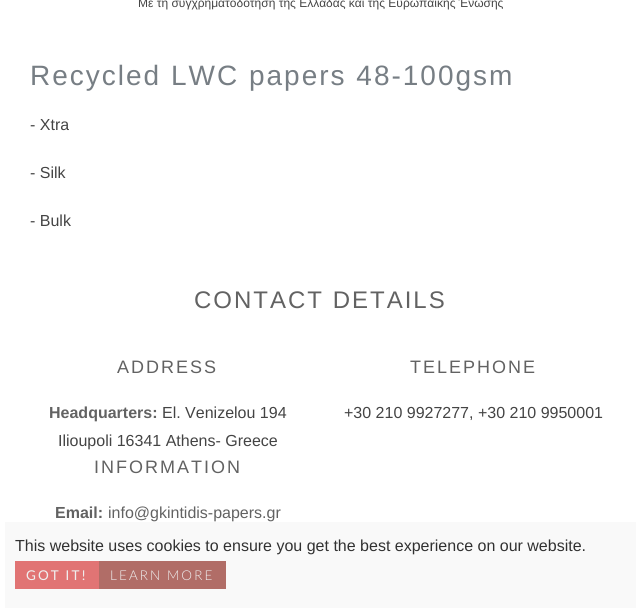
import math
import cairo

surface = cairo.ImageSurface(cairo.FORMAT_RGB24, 641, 613)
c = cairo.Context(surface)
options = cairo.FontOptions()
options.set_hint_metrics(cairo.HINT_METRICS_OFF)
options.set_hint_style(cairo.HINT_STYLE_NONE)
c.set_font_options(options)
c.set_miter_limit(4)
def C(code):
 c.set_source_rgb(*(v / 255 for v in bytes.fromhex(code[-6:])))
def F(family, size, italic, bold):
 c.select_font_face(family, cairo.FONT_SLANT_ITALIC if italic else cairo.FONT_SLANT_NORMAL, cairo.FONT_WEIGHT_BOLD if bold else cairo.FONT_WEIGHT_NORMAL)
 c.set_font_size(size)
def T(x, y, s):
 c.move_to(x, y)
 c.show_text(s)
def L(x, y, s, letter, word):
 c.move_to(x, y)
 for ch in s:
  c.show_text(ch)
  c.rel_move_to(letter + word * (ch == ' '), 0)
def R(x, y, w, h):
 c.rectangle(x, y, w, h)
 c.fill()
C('ffffff')
c.paint()
C('f9f9f9')
R(5,522,631,86)
F('Liberation Sans',12,0,0)
C('444444')
T(138,7,'Με τη συγχρηματοδότηση της Ελλάδας και της Ευρωπαϊκής Ένωσης')
F('Liberation Sans',28,0,0)
C('777e84')
L(30,85,'Recycled LWC papers 48-100gsm',2,0)
F('Liberation Sans',16,0,0)
C('444444')
T(30,130,'- Xtra')
T(30,178,'- Silk')
T(30,226,'- Bulk')
F('Liberation Sans',24,0,0)
C('626262')
L(194,308,'CONTACT DETAILS',2,0)
F('Liberation Sans',18,0,0)
L(117,373,'ADDRESS',2,0)
F('Liberation Sans',16,0,1)
T(49,418,'Headquarters:')
F('Liberation Sans',16,0,0)
C('444444')
T(162,418,'Εl. Venizelou 194')
T(58,446,'Ilioupoli 16341 Athens- Greece')
F('Liberation Sans',18,0,0)
C('626262')
L(410,373,'ΤELEPHONE',2,0)
F('Liberation Sans',16,0,0)
C('444444')
T(344,418,'+30 210 9927277, +30 210 9950001')
F('Liberation Sans',18,0,0)
C('626262')
L(94,473,'INFORMATION',2,0)
F('Liberation Sans',16,0,1)
T(55,518,'Email:')
F('Liberation Sans',16,0,0)
T(108,518,'info@gkintidis-papers.gr')
C('313131')
T(15,551,'This website uses cookies to ensure you get the best experience on our website.')
C('e17474')
R(15,561,84,28)
F('Lato',13.5,0,0)
C('efefef')
L(26,580,'GOT IT!',2,0)
C('b16d67')
R(99,561,127,28)
F('Lato Light',13.5,0,0)
C('efefef')
L(110,580,'LEARN MORE',2,0)
surface.write_to_png('o.png')
